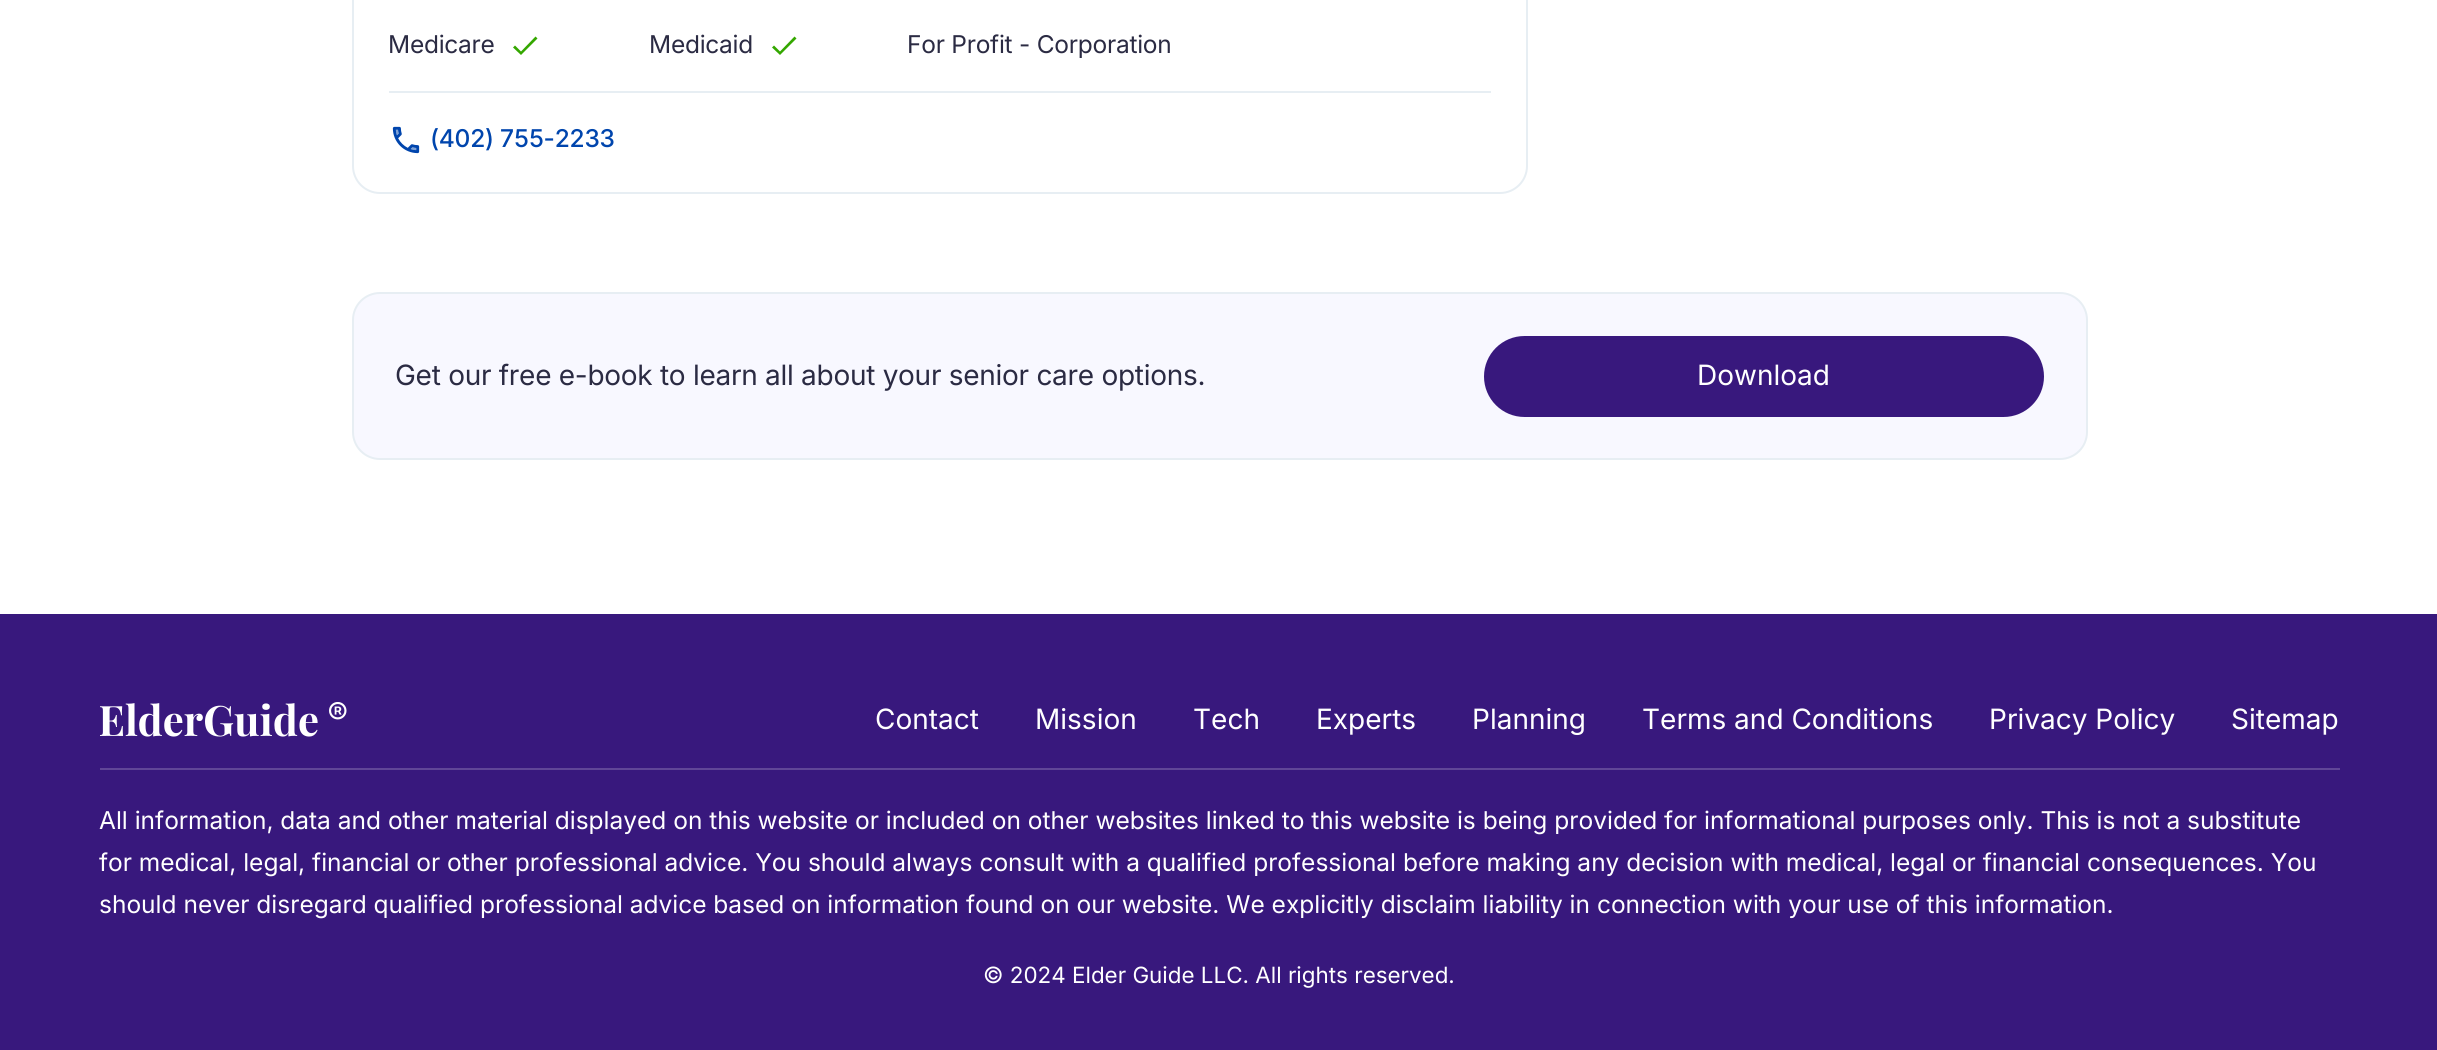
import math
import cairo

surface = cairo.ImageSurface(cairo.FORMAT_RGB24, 2437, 1050)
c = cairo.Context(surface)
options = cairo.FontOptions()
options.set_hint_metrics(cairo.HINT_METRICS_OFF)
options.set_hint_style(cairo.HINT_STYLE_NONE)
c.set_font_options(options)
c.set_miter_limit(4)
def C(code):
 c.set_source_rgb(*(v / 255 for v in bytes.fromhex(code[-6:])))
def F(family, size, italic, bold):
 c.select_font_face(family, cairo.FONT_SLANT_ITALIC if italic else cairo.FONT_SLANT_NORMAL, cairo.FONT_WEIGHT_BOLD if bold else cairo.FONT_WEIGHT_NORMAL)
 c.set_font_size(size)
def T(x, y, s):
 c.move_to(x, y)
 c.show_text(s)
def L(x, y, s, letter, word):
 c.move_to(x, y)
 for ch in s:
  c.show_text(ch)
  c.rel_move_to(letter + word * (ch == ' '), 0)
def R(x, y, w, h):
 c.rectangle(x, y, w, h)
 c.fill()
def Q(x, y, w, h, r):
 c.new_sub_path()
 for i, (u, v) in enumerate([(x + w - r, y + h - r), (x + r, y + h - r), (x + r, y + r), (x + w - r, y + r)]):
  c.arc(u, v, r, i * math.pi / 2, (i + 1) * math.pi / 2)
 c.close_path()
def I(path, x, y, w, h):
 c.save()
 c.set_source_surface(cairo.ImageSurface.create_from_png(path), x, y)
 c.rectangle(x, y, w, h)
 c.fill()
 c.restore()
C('ffffff')
c.paint()
Q(353,-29,1174,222,27)
C('e7eef3')
c.stroke()
F('Inter',24.5,0,0)
C('2b2b43')
L(388,53,'Medicare',-.25,0)
C('34a700')
c.new_path()
c.move_to(521,51.5)
c.line_to(515,45.5)
c.line_to(513,47.5)
c.line_to(521,55)
c.line_to(537.5,38.5)
c.line_to(535.5,36.5)
c.close_path()
c.fill()
C('2b2b43')
L(649,53,'Medicaid',-.25,0)
C('34a700')
c.new_path()
c.move_to(780,51.5)
c.line_to(774,45.5)
c.line_to(772,47.5)
c.line_to(780,55)
c.line_to(796.5,38.5)
c.line_to(794.5,36.5)
c.close_path()
c.fill()
C('2b2b43')
L(907,53,'For Profit - Corporation',-.25,0)
C('e7eef3')
R(389,91,1102,2)
I('1.png',392,126,28,28)
F('Inter Medium',24.5,0,0)
C('0045ad')
L(430,147,'(402) 755-2233',-.25,0)
C('f8f8ff')
Q(353,293,1734,166,27)
c.fill_preserve()
C('e7eef3')
c.stroke()
F('Inter',28,0,0)
C('2b2b43')
L(395,385,'Get our free e-book to learn all about your senior care options.',-.28,0)
C('38187d')
Q(1484,336,560,81,40.5)
c.fill()
C('ffffff')
T(1697,385,'Download')
C('38187d')
R(0,614,2437,436)
C('604697')
R(100,768,2240,2)
I('2.png',100,702,247,35)
C('ffffff')
T(875,729,'Contact')
T(1035,729,'Mission')
T(1193,729,'Tech')
T(1316,729,'Experts')
T(1472,729,'Planning')
T(1642,729,'Terms and Conditions')
T(1989,729,'Privacy Policy')
T(2231,729,'Sitemap')
F('Inter',24.5,0,0)
T(99,829,'All information, data and other material displayed on this website or included on other websites linked to this website is being provided for informational purposes only. This is not a substitute')
T(99,871,'for medical, legal, financial or other professional advice. You should always consult with a qualified professional before making any decision with medical, legal or financial consequences. You')
T(99,913,'should never disregard qualified professional advice based on information found on our website. We explicitly disclaim liability in connection with your use of this information.')
F('Inter',22.4,0,0)
T(983,983,'© 2024 Elder Guide LLC. All rights reserved.')
surface.write_to_png('o.png')
